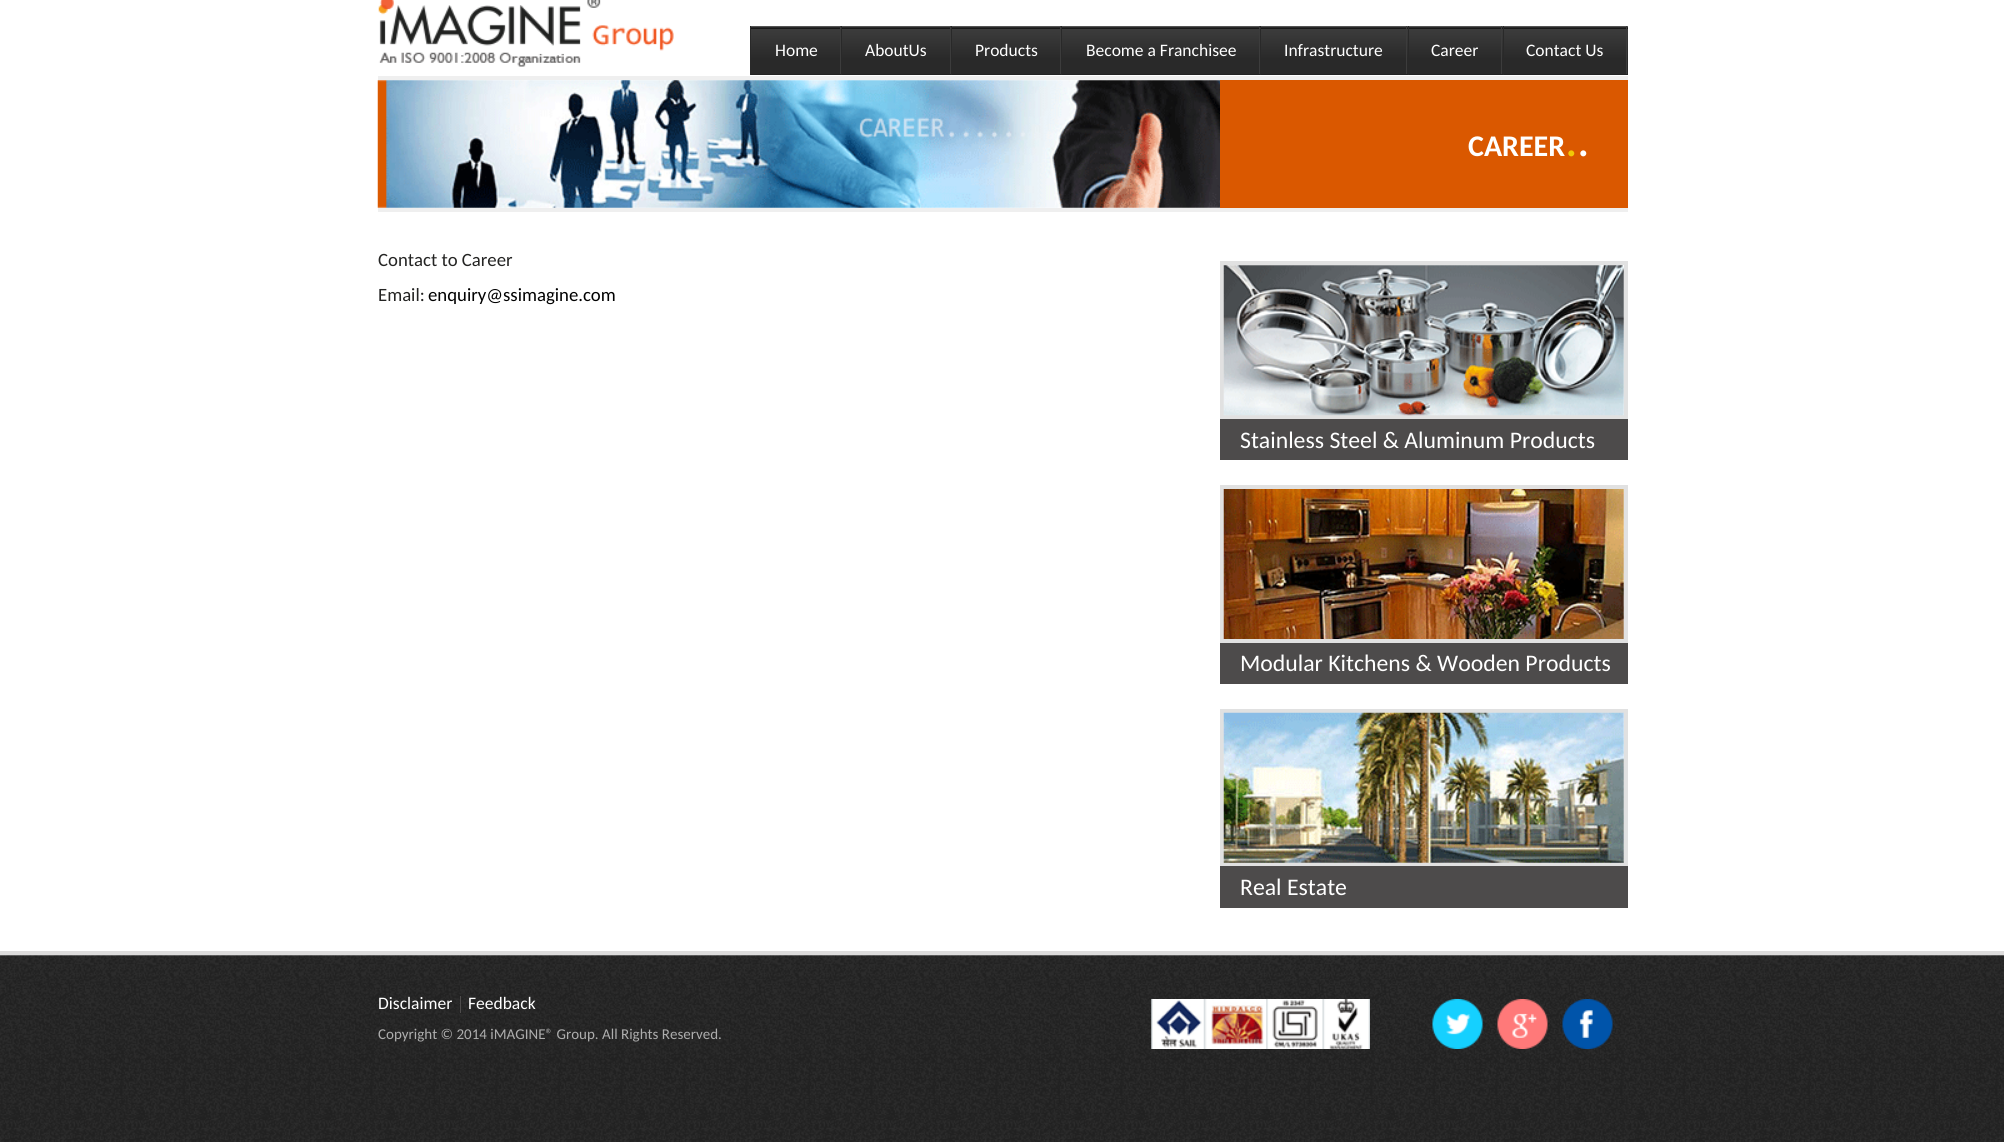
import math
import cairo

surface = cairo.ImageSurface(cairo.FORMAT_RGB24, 2004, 1142)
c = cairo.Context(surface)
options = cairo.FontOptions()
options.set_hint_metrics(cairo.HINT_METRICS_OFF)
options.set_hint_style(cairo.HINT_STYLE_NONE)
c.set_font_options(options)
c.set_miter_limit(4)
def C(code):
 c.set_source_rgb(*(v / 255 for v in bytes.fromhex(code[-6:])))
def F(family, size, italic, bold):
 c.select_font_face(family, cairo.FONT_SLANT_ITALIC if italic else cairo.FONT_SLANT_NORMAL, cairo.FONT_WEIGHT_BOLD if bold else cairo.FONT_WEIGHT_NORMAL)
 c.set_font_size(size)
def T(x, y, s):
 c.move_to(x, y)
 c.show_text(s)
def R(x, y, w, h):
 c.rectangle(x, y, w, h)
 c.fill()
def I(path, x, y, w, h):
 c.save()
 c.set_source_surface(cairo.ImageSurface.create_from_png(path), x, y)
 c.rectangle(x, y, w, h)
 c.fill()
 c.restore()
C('ffffff')
c.paint()
I('1.png',378,0,296,67)
gradient = cairo.LinearGradient(751,-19,751,13)
gradient.add_color_stop_rgba(0,0,0,0,1)
gradient.add_color_stop_rgba(.04,0.235,0.235,0.235,1)
gradient.add_color_stop_rgba(1,0.161,0.161,0.161,1)
c.set_source(gradient)
R(750,27,91,1)
gradient = cairo.LinearGradient(751,28,751,59)
gradient.add_color_stop_rgba(0,0,0,0,1)
gradient.add_color_stop_rgba(.04,0.235,0.235,0.235,1)
gradient.add_color_stop_rgba(1,0.161,0.161,0.161,1)
c.set_source(gradient)
R(751,28,89,46)
C('545454')
R(750,26,878,1)
C('3c3c3c')
R(840,26,1,49)
C('232323')
R(750,74,91,1)
C('292929')
R(750,26,1,49)
F('Carlito',17.5,0,0)
C('ffffff')
T(775,56,'Home')
gradient = cairo.LinearGradient(843,-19,843,13)
gradient.add_color_stop_rgba(0,0,0,0,1)
gradient.add_color_stop_rgba(.04,0.235,0.235,0.235,1)
gradient.add_color_stop_rgba(1,0.161,0.161,0.161,1)
c.set_source(gradient)
R(841,27,110,1)
gradient = cairo.LinearGradient(843,28,843,59)
gradient.add_color_stop_rgba(0,0,0,0,1)
gradient.add_color_stop_rgba(.04,0.235,0.235,0.235,1)
gradient.add_color_stop_rgba(1,0.161,0.161,0.161,1)
c.set_source(gradient)
R(842,28,108,46)
C('3c3c3c')
R(950,26,1,49)
C('232323')
R(841,74,110,1)
C('292929')
R(841,26,1,49)
C('ffffff')
T(865,56,'AboutUs')
gradient = cairo.LinearGradient(953,-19,953,13)
gradient.add_color_stop_rgba(0,0,0,0,1)
gradient.add_color_stop_rgba(.04,0.235,0.235,0.235,1)
gradient.add_color_stop_rgba(1,0.161,0.161,0.161,1)
c.set_source(gradient)
R(951,27,110,1)
gradient = cairo.LinearGradient(953,28,953,59)
gradient.add_color_stop_rgba(0,0,0,0,1)
gradient.add_color_stop_rgba(.04,0.235,0.235,0.235,1)
gradient.add_color_stop_rgba(1,0.161,0.161,0.161,1)
c.set_source(gradient)
R(952,28,108,46)
C('3c3c3c')
R(1060,26,1,49)
C('232323')
R(951,74,110,1)
C('292929')
R(951,26,1,49)
C('ffffff')
T(975,56,'Products')
gradient = cairo.LinearGradient(1063,-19,1063,13)
gradient.add_color_stop_rgba(0,0,0,0,1)
gradient.add_color_stop_rgba(.04,0.235,0.235,0.235,1)
gradient.add_color_stop_rgba(1,0.161,0.161,0.161,1)
c.set_source(gradient)
R(1061,27,199,1)
gradient = cairo.LinearGradient(1063,28,1063,59)
gradient.add_color_stop_rgba(0,0,0,0,1)
gradient.add_color_stop_rgba(.04,0.235,0.235,0.235,1)
gradient.add_color_stop_rgba(1,0.161,0.161,0.161,1)
c.set_source(gradient)
R(1062,28,197,46)
C('3c3c3c')
R(1259,26,1,49)
C('232323')
R(1061,74,199,1)
C('292929')
R(1061,26,1,49)
C('ffffff')
T(1086,56,'Become a Franchisee')
gradient = cairo.LinearGradient(1261,-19,1261,13)
gradient.add_color_stop_rgba(0,0,0,0,1)
gradient.add_color_stop_rgba(.04,0.235,0.235,0.235,1)
gradient.add_color_stop_rgba(1,0.161,0.161,0.161,1)
c.set_source(gradient)
R(1260,27,148,1)
gradient = cairo.LinearGradient(1261,28,1261,59)
gradient.add_color_stop_rgba(0,0,0,0,1)
gradient.add_color_stop_rgba(.04,0.235,0.235,0.235,1)
gradient.add_color_stop_rgba(1,0.161,0.161,0.161,1)
c.set_source(gradient)
R(1261,28,147,46)
C('3c3c3c')
R(1406,26,1,49)
C('232323')
R(1260,74,148,1)
C('292929')
R(1260,26,1,49)
C('ffffff')
T(1284,56,'Infrastructure')
gradient = cairo.LinearGradient(1409,-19,1409,13)
gradient.add_color_stop_rgba(0,0,0,0,1)
gradient.add_color_stop_rgba(.04,0.235,0.235,0.235,1)
gradient.add_color_stop_rgba(1,0.161,0.161,0.161,1)
c.set_source(gradient)
R(1408,27,95,1)
gradient = cairo.LinearGradient(1409,28,1409,59)
gradient.add_color_stop_rgba(0,0,0,0,1)
gradient.add_color_stop_rgba(.04,0.235,0.235,0.235,1)
gradient.add_color_stop_rgba(1,0.161,0.161,0.161,1)
c.set_source(gradient)
R(1409,28,94,46)
C('3c3c3c')
R(1501,26,1,49)
C('232323')
R(1408,74,95,1)
C('292929')
R(1408,26,1,49)
C('ffffff')
T(1431,56,'Career')
gradient = cairo.LinearGradient(1504,-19,1504,13)
gradient.add_color_stop_rgba(0,0,0,0,1)
gradient.add_color_stop_rgba(.04,0.235,0.235,0.235,1)
gradient.add_color_stop_rgba(1,0.161,0.161,0.161,1)
c.set_source(gradient)
R(1503,27,125,1)
gradient = cairo.LinearGradient(1504,28,1504,59)
gradient.add_color_stop_rgba(0,0,0,0,1)
gradient.add_color_stop_rgba(.04,0.235,0.235,0.235,1)
gradient.add_color_stop_rgba(1,0.161,0.161,0.161,1)
c.set_source(gradient)
R(1504,28,124,46)
C('3c3c3c')
R(1626,26,1,49)
C('232323')
R(1503,74,125,1)
C('292929')
R(1503,26,1,49)
C('ffffff')
T(1526,56,'Contact Us')
C('efefef')
R(378,76,1250,4)
R(378,208,1250,4)
I('2.png',377,80,843,128)
C('da5800')
R(1220,80,408,128)
F('Carlito',30,0,1)
C('ffffff')
T(1468,156,'CAREER')
F('Carlito',50,0,0)
C('f1c807')
T(1565,156,'.')
C('ffffff')
T(1577,156,'.')
F('Carlito',18.75,0,0)
C('242423')
T(378,266,'Contact to Career')
T(378,301,'Email:')
C('000000')
T(428,301,'enquiry@ssimagine.com')
c.rectangle(1222,263,404,154)
C('e1e1e1')
c.set_line_width(4)
c.stroke()
I('3.png',1223,265,401,151)
C('4d4b4b')
R(1220,419,408,41)
F('Carlito',23.75,0,0)
C('ffffff')
T(1240,448,'Stainless Steel & Aluminum Products')
c.rectangle(1222,487,404,154)
C('e1e1e1')
c.stroke()
I('4.png',1223,489,401,150)
C('4d4b4b')
R(1220,643,408,41)
C('ffffff')
T(1240,671,'Modular Kitchens & Wooden Products')
c.rectangle(1222,711,404,153)
C('e1e1e1')
c.stroke()
I('5.png',1223,712,401,151)
C('4d4b4b')
R(1220,866,408,42)
C('ffffff')
T(1240,895,'Real Estate')
I('6.png',0,955,2004,187)
C('dddcdc')
R(0,951,2004,4)
F('Carlito',17.5,0,0)
C('ffffff')
T(378,1009,'Disclaimer')
C('4e4c4c')
R(460,996,1,17)
C('ffffff')
T(468,1009,'Feedback')
I('7.png',1151,999,219,50)
I('8.png',1432,999,51,50)
I('9.png',1497,999,51,50)
I('10.png',1562,999,51,50)
F('Carlito',15,0,0)
C('adadad')
T(378,1039,'Copyright © 2014 iMAGINE® Group. All Rights Reserved.')
surface.write_to_png('o.png')
